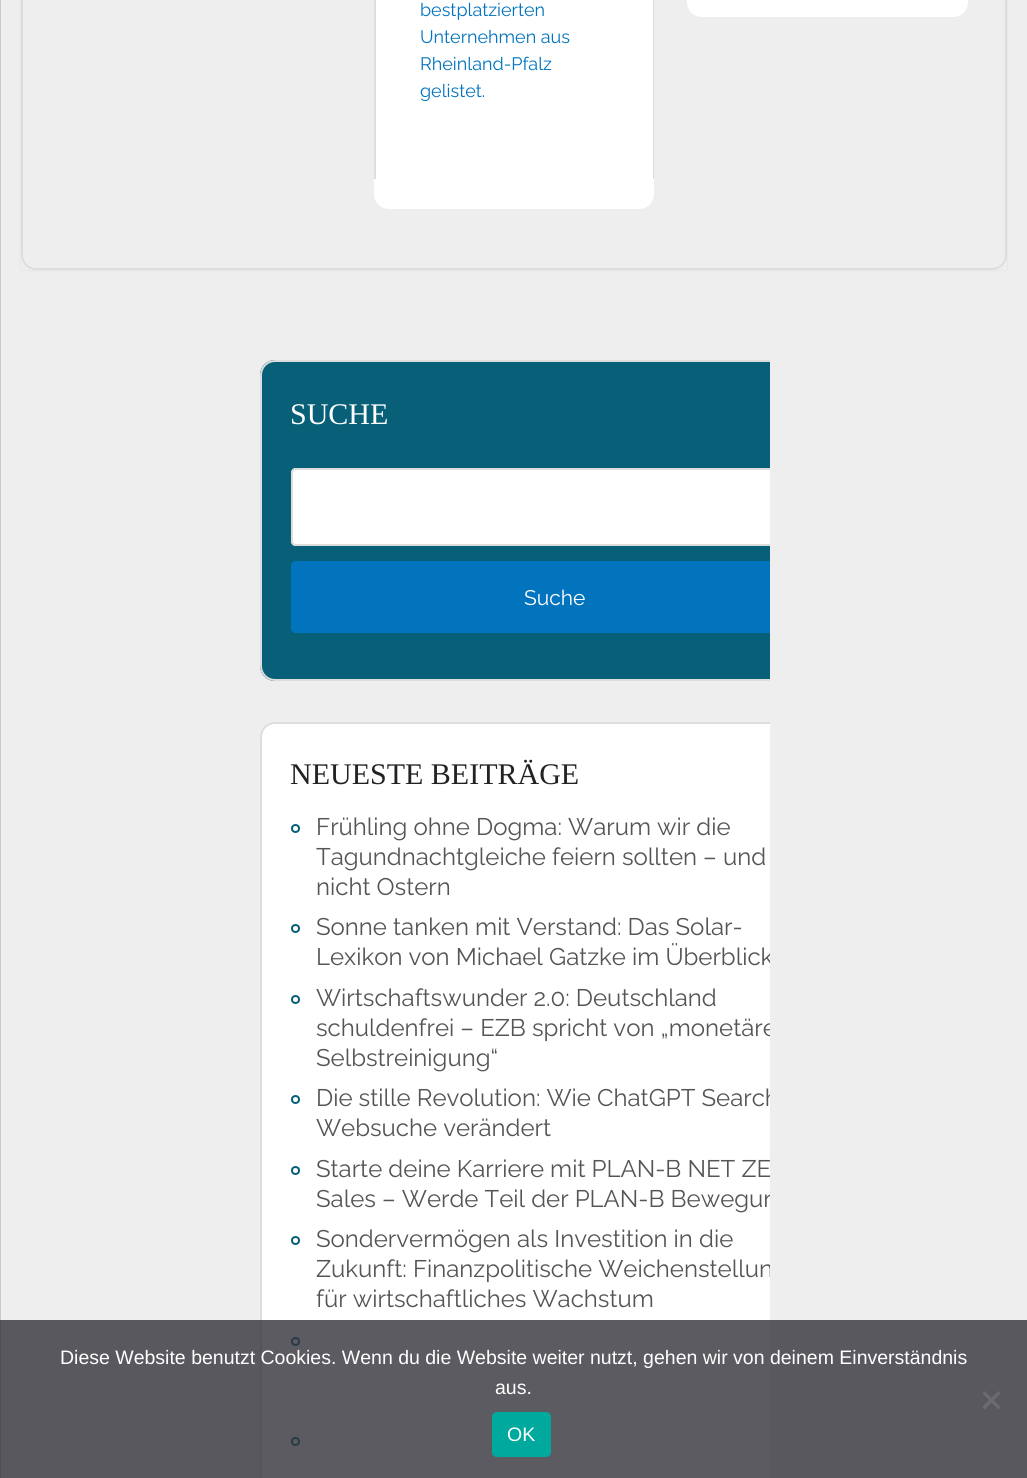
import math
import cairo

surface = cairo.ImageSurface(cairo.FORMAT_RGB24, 1027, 1478)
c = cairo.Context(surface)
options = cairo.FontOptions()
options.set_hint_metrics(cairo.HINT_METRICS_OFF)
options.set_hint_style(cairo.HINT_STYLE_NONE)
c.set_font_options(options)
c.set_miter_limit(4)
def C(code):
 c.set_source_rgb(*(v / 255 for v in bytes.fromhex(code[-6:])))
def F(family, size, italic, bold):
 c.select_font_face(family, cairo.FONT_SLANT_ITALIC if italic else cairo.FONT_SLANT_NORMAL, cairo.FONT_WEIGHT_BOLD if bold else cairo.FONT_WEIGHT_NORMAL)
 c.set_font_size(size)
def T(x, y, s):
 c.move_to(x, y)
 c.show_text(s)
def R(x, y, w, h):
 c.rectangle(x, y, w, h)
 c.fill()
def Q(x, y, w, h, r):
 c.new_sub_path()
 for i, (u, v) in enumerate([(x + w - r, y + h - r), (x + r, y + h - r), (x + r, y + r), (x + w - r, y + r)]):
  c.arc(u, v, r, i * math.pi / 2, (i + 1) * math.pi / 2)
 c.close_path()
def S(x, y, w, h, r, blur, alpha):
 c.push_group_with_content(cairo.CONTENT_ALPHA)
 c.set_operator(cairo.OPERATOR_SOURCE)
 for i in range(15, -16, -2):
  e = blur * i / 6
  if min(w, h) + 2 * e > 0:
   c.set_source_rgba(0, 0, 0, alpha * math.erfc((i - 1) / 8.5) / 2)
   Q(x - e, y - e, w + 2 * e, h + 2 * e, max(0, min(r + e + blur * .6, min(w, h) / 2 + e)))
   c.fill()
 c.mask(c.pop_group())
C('eeeeee')
c.paint()
C('cacaca')
R(0,0,1,1478)
C('323232')
S(21,-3,986,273,0,1,.1)
C('eeeeee')
R(21,0,986,270)
Q(22,-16,984,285,14)
C('dddddd')
c.stroke()
C('ffffff')
Q(374,-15,280,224,15)
c.fill()
C('dddddd')
R(653,0,1,179)
R(374,0,2,179)
F('Raleway',18,0,0)
C('0274be')
T(420,16,'bestplatzierten')
T(420,43,'Unternehmen aus')
T(420,70,'Rheinland-Pfalz')
T(420,97,'gelistet.')
C('ffffff')
Q(687,-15,281,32,15)
c.fill()
C('076078')
c.new_path()
c.move_to(275,360)
c.line_to(770,360)
c.line_to(770,681)
c.line_to(275,681)
c.curve_to(266.5,681,260,674.5,260,666)
c.line_to(260,375)
c.curve_to(260,366.5,266.5,360,275,360)
c.close_path()
c.fill()
c.save()
c.rectangle(260,315,510,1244)
c.clip()
Q(261,361,590,319,14)
C('dddddd')
c.stroke()
c.restore()
F('Liberation Serif',30,0,0)
C('ffffff')
T(290,424,'SUCHE')
c.new_path()
c.move_to(296,468)
c.line_to(770,468)
c.line_to(770,546)
c.line_to(296,546)
c.curve_to(293,546,291,544,291,541)
c.line_to(291,473)
c.curve_to(291,470,293,468,296,468)
c.close_path()
c.fill()
c.save()
c.rectangle(260,315,510,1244)
c.clip()
Q(292,469,528,76,4)
C('dddddd')
c.stroke()
c.restore()
C('0274be')
c.new_path()
c.move_to(296,561)
c.line_to(770,561)
c.line_to(770,633)
c.line_to(296,633)
c.curve_to(293,633,291,631,291,628)
c.line_to(291,566)
c.curve_to(291,563,293,561,296,561)
c.close_path()
c.fill()
F('Raleway',21,0,0)
C('ffffff')
T(524,605,'Suche')
c.new_path()
c.move_to(275,722)
c.line_to(770,722)
c.line_to(770,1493)
c.line_to(275,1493)
c.curve_to(266.5,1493,260,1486.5,260,1478)
c.line_to(260,737)
c.curve_to(260,728.5,266.5,722,275,722)
c.close_path()
c.fill()
c.save()
c.rectangle(260,315,510,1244)
c.clip()
Q(261,723,590,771,14)
C('dddddd')
c.stroke()
c.restore()
F('Liberation Serif',30,0,0)
C('222222')
T(290,784,'NEUESTE BEITRÄGE')
c.new_path()
c.arc(295.5,828.5,3.5,0,2 * math.pi)
C('076078')
c.stroke()
F('Raleway',24,0,0)
C('555555')
T(316,835,'Frühling ohne Dogma: Warum wir die')
T(316,865,'Tagundnachtgleiche feiern sollten – und')
T(316,895,'nicht Ostern')
c.new_path()
c.arc(295.5,928.5,3.5,0,2 * math.pi)
C('076078')
c.stroke()
C('555555')
T(316,935,'Sonne tanken mit Verstand: Das Solar-')
c.save()
c.rectangle(260,315,510,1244)
c.clip()
T(316,965,'Lexikon von Michael Gatzke im Überblick')
c.restore()
c.new_path()
c.arc(295.5,999.5,3.5,0,2 * math.pi)
C('076078')
c.stroke()
C('555555')
T(316,1006,'Wirtschaftswunder 2.0: Deutschland')
c.save()
c.rectangle(260,315,510,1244)
c.clip()
T(316,1036,'schuldenfrei – EZB spricht von „monetäre')
c.restore()
T(316,1066,'Selbstreinigung“')
c.new_path()
c.arc(295.5,1099.5,3.5,0,2 * math.pi)
C('076078')
c.stroke()
c.save()
c.rectangle(260,315,510,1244)
c.clip()
C('555555')
T(316,1106,'Die stille Revolution: Wie ChatGPT Search')
c.restore()
C('555555')
T(316,1136,'Websuche verändert')
c.new_path()
c.arc(295.5,1170.5,3.5,0,2 * math.pi)
C('076078')
c.stroke()
C('555555')
T(316,1177,'Starte deine Karriere mit PLAN-B NET ZE')
c.save()
c.rectangle(260,315,510,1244)
c.clip()
T(316,1207,'Sales – Werde Teil der PLAN-B Bewegun')
c.restore()
c.new_path()
c.arc(295.5,1240.5,3.5,0,2 * math.pi)
C('076078')
c.stroke()
C('555555')
T(316,1247,'Sondervermögen als Investition in die')
c.save()
c.rectangle(260,315,510,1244)
c.clip()
T(316,1277,'Zukunft: Finanzpolitische Weichenstellun')
c.restore()
T(316,1307,'für wirtschaftliches Wachstum')
c.new_path()
c.arc(295.5,1341.5,3.5,0,2 * math.pi)
C('076078')
c.stroke()
c.arc(295.5,1441.5,3.5,0,2 * math.pi)
c.stroke()
c.set_source_rgba(0.196,0.196,0.227,0.8)
R(0,1320,1027,158)
F('Liberation Sans',19.5,0,0)
C('ffffff')
T(60,1364,'Diese Website benutzt Cookies. Wenn du die Website weiter nutzt, gehen wir von deinem Einverständnis')
T(495,1394,'aus.')
C('6c6c6f')
c.new_path()
c.move_to(998.5,1391)
c.line_to(1000.5,1393.5)
c.line_to(984.5,1409.5)
c.line_to(982.5,1407)
c.close_path()
c.fill()
c.new_path()
c.move_to(982.5,1393.5)
c.line_to(984.5,1391)
c.line_to(1000.5,1407)
c.line_to(998.5,1409.5)
c.close_path()
c.fill()
C('00a99d')
Q(492,1412,59,45,5)
c.fill()
C('ffffff')
T(507,1441,'OK')
surface.write_to_png('o.png')
